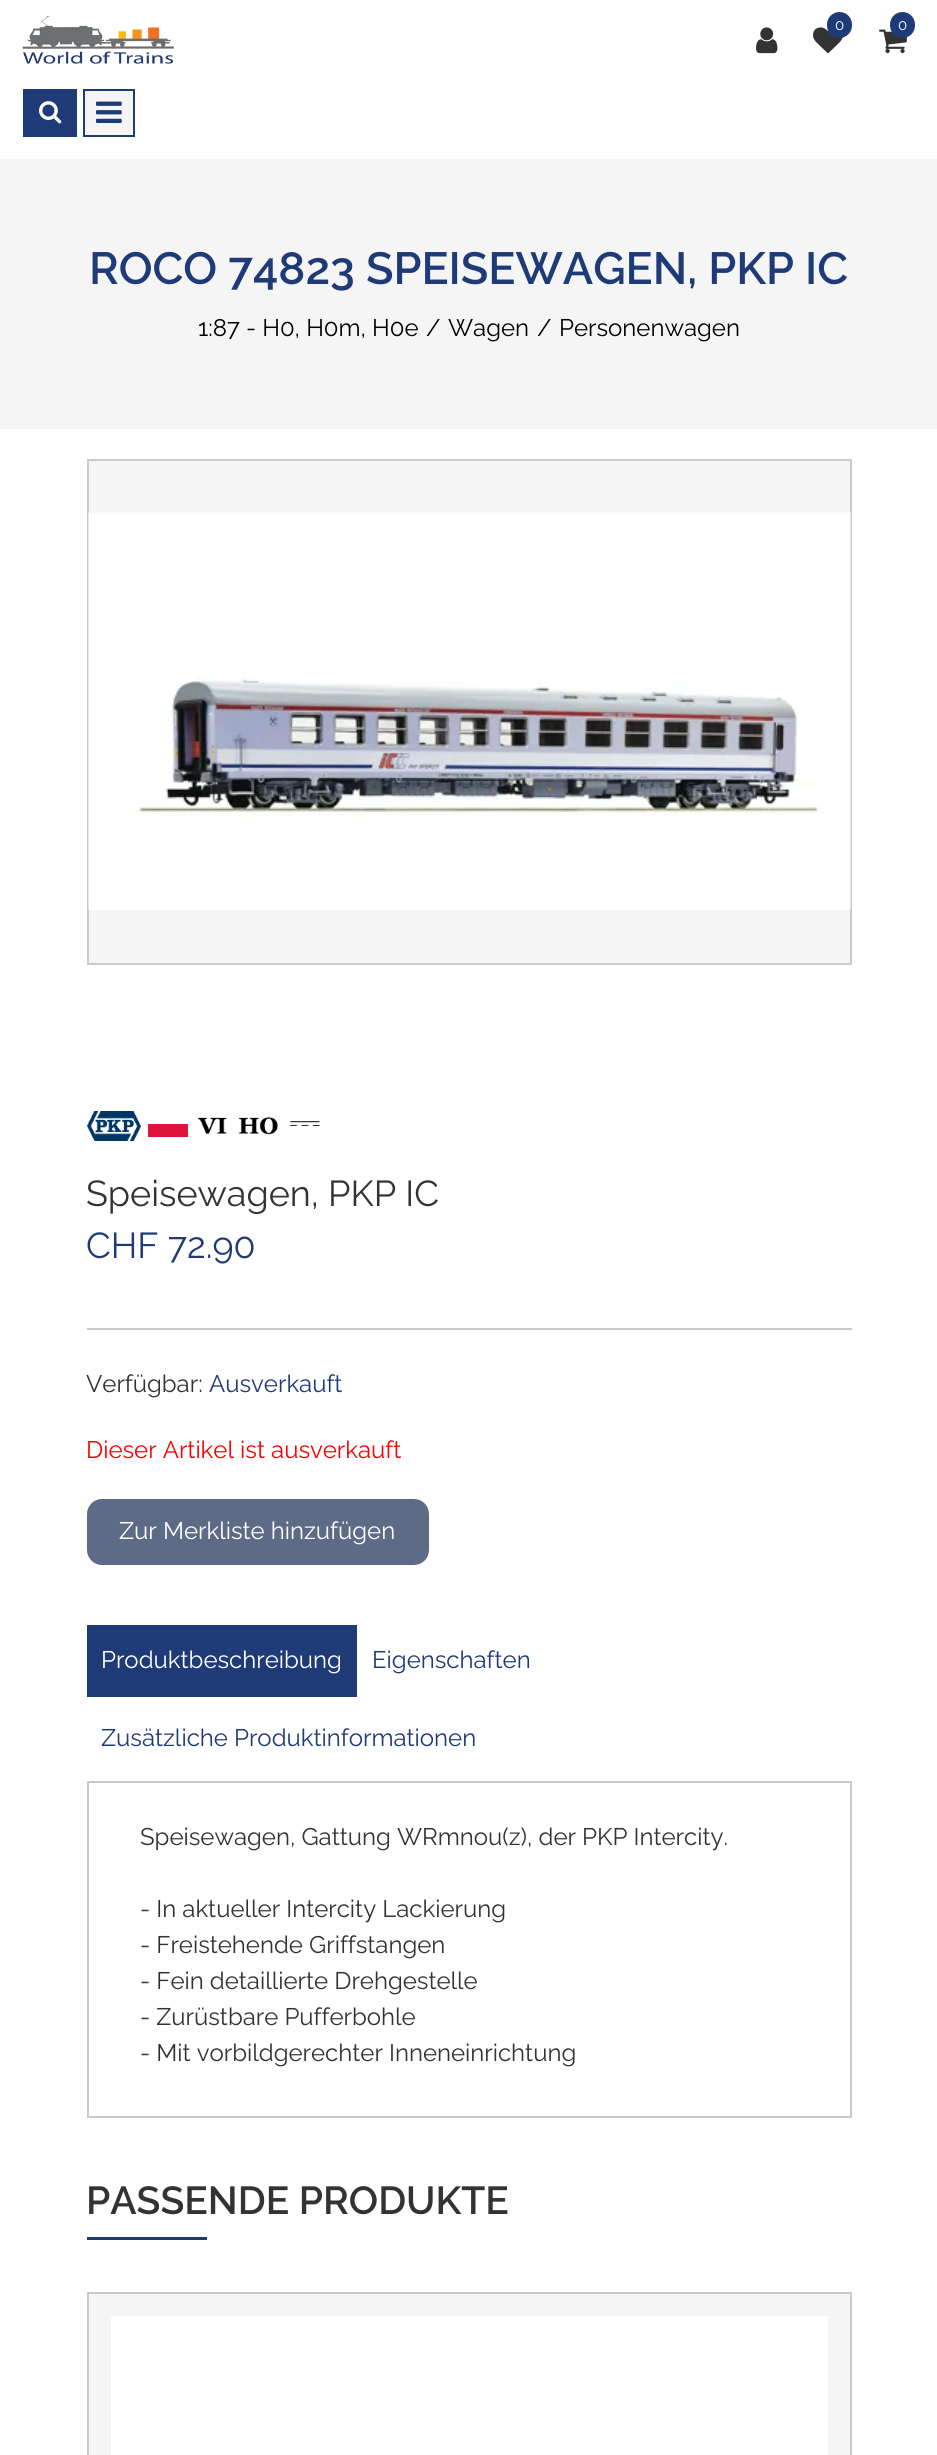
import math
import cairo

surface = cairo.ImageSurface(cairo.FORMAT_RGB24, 937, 2455)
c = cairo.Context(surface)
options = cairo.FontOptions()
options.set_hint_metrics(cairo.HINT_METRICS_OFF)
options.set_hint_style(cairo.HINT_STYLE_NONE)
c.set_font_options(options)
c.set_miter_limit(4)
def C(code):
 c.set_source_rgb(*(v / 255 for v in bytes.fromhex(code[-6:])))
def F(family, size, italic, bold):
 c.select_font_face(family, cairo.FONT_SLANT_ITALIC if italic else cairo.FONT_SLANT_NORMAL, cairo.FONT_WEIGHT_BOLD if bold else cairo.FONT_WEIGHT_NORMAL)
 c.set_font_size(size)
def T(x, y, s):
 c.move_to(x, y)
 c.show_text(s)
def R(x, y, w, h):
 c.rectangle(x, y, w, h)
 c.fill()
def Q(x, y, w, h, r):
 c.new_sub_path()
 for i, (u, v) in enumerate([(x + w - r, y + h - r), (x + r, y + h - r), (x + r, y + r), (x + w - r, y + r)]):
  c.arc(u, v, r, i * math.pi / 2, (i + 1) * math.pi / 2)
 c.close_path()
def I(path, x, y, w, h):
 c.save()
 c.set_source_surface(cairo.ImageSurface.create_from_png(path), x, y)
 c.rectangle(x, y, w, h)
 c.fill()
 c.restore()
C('ffffff')
c.paint()
I('1.png',22,16,152,48)
I('2.png',813,27,30,27)
C('1e3a77')
Q(827,12,25,26,12.5)
c.fill()
F('Raleway',15,0,0)
C('ffffff')
T(835,30,'0')
I('3.png',879,29,28,25)
C('1e3a77')
Q(890,12,25,26,12.5)
c.fill()
C('ffffff')
T(898,30,'0')
I('4.png',756,27,22,27)
C('1e3a77')
R(23,89,54,48)
I('5.png',39,101,23,23)
C('f5f5f5')
c.rectangle(84,90,50,46)
c.fill_preserve()
C('1e3a77')
c.stroke()
I('6.png',96,101,26,22)
C('f5f5f5')
R(0,159,937,270)
F('Raleway SemiBold',45,0,0)
C('1e3a77')
T(89,284,'ROCO 74823 SPEISEWAGEN, PKP IC')
F('Raleway',24,0,0)
C('000000')
T(198,336,'1:87 - H0, H0m, H0e')
T(426,336,'/')
T(448,336,'Wagen')
T(537,336,'/')
T(559,336,'Personenwagen')
C('f5f5f5')
c.rectangle(88,460,763,504)
c.fill_preserve()
C('cacaca')
c.stroke()
I('7.png',88,512,763,398)
I('8.png',87,1111,54,30)
I('9.png',198,1117,29,18)
I('10.png',238,1117,40,18)
I('11.png',289,1121,31,5)
C('dc143c')
R(148,1124,40,13)
F('Raleway',36,0,0)
C('333333')
T(86,1206,'Speisewagen, PKP IC')
C('1e3a77')
T(86,1258,'CHF 72.90')
C('cacaca')
R(87,1328,765,2)
F('Raleway',24,0,0)
C('333333')
T(86,1392,'Verfügbar:')
C('1e3a77')
T(209,1392,'Ausverkauft')
C('ff0000')
T(86,1458,'Dieser Artikel ist ausverkauft')
C('5e6b87')
Q(88.5,1500.5,339,63,13.5)
c.fill_preserve()
c.set_line_width(3)
c.stroke()
C('ffffff')
T(119,1539,'Zur Merkliste hinzufügen')
C('1e3a77')
R(87,1625,270,72)
C('ffffff')
T(101,1668,'Produktbeschreibung')
C('1e3a77')
T(372,1668,'Eigenschaften')
T(101,1746,'Zusätzliche Produktinformationen')
c.rectangle(88,1782,763,335)
C('cacaca')
c.set_line_width(2)
c.stroke()
C('333333')
T(140,1845,'Speisewagen, Gattung WRmnou(z), der PKP Intercity.')
T(140,1917,'- In aktueller Intercity Lackierung')
T(140,1953,'- Freistehende Griffstangen')
T(140,1989,'- Fein detaillierte Drehgestelle')
T(140,2025,'- Zurüstbare Pufferbohle')
T(140,2061,'- Mit vorbildgerechter Inneneinrichtung')
F('Raleway SemiBold',39,0,0)
T(86,2214,'PASSENDE PRODUKTE')
C('1e3a77')
R(87,2237,120,3)
C('f5f5f5')
c.rectangle(88,2293,763,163)
c.fill_preserve()
C('cacaca')
c.stroke()
C('ffffff')
R(111,2316,717,139)
surface.write_to_png('o.png')
